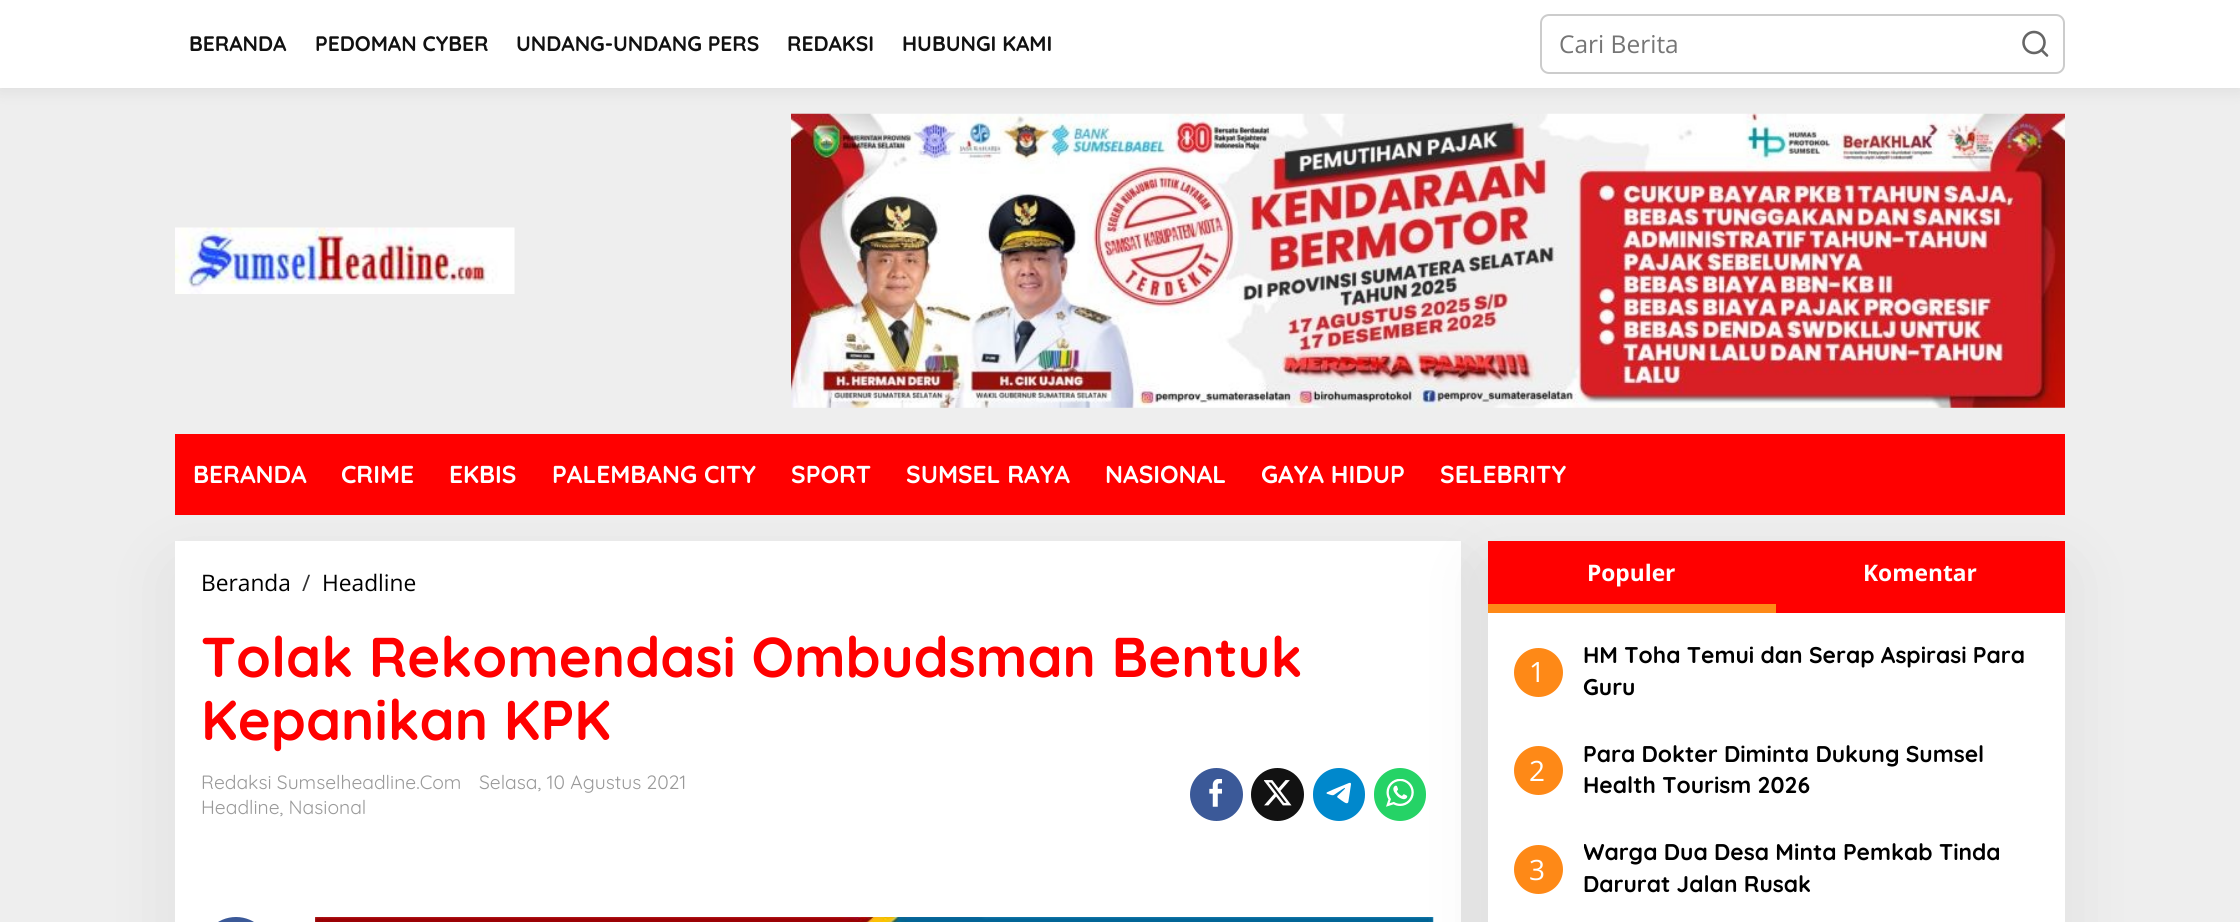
import math
import cairo

surface = cairo.ImageSurface(cairo.FORMAT_RGB24, 2240, 922)
c = cairo.Context(surface)
options = cairo.FontOptions()
options.set_hint_metrics(cairo.HINT_METRICS_OFF)
options.set_hint_style(cairo.HINT_STYLE_NONE)
c.set_font_options(options)
c.set_miter_limit(4)
def C(code):
 c.set_source_rgb(*(v / 255 for v in bytes.fromhex(code[-6:])))
def F(family, size, italic, bold):
 c.select_font_face(family, cairo.FONT_SLANT_ITALIC if italic else cairo.FONT_SLANT_NORMAL, cairo.FONT_WEIGHT_BOLD if bold else cairo.FONT_WEIGHT_NORMAL)
 c.set_font_size(size)
def T(x, y, s):
 c.move_to(x, y)
 c.show_text(s)
def R(x, y, w, h):
 c.rectangle(x, y, w, h)
 c.fill()
def Q(x, y, w, h, r):
 c.new_sub_path()
 for i, (u, v) in enumerate([(x + w - r, y + h - r), (x + r, y + h - r), (x + r, y + r), (x + w - r, y + r)]):
  c.arc(u, v, r, i * math.pi / 2, (i + 1) * math.pi / 2)
 c.close_path()
def S(x, y, w, h, r, blur, alpha):
 c.push_group_with_content(cairo.CONTENT_ALPHA)
 c.set_operator(cairo.OPERATOR_SOURCE)
 for i in range(15, -16, -2):
  e = blur * i / 6
  if min(w, h) + 2 * e > 0:
   c.set_source_rgba(0, 0, 0, alpha * math.erfc((i - 1) / 8.5) / 2)
   Q(x - e, y - e, w + 2 * e, h + 2 * e, max(0, min(r + e + blur * .6, min(w, h) / 2 + e)))
   c.fill()
 c.mask(c.pop_group())
def I(path, x, y, w, h):
 c.save()
 c.set_source_surface(cairo.ImageSurface.create_from_png(path), x, y)
 c.rectangle(x, y, w, h)
 c.fill()
 c.restore()
C('eeeeee')
c.paint()
I('2.png',791,113,1274,295)
C('000000')
S(0,0,2240,88,0,9,.1)
C('ffffff')
R(0,0,2240,88)
F('Quicksand',21,0,1)
C('111111')
T(189,51,'BERANDA')
T(315,51,'PEDOMAN CYBER')
T(516,51,'UNDANG-UNDANG PERS')
T(787,51,'REDAKSI')
T(902,51,'HUBUNGI KAMI')
Q(1541,15,523,58,8)
C('cccccc')
c.stroke()
F('Open Sans',24.5,0,0)
C('757575')
T(1559,53,'Cari Berita')
c.new_path()
c.arc(2034,42.5,10.5,0,2 * math.pi)
C('666666')
c.set_line_width(2.6)
c.stroke()
c.new_path()
c.move_to(2047,55.5)
c.line_to(2041.5,50)
c.set_line_cap(cairo.LINE_CAP_ROUND)
c.set_line_join(cairo.LINE_JOIN_ROUND)
c.stroke()
I('1.png',175,227,340,67)
C('ff0000')
R(175,434,1890,81)
F('Quicksand',24.5,0,1)
C('ffffff')
T(193,483,'BERANDA')
T(341,483,'CRIME')
T(449,483,'EKBIS')
T(552,483,'PALEMBANG CITY')
T(791,483,'SPORT')
T(906,483,'SUMSEL RAYA')
T(1105,483,'NASIONAL')
T(1261,483,'GAYA HIDUP')
T(1440,483,'SELEBRITY')
C('000000')
S(175,569,1286,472,0,39.5,.07)
C('ffffff')
R(175,541,1286,381)
F('Open Sans',22.75,0,0)
C('000000')
T(201,591,'Beranda')
C('323233')
T(302,591,'/')
C('000000')
T(322,591,'Headline')
F('Quicksand',56,0,1)
C('ff0000')
T(201,677,'Tolak Rekomendasi Ombudsman Bentuk')
T(201,740,'Kepanikan KPK')
F('Quicksand',19.25,0,0)
C('999999')
T(201,789,'Redaksi Sumselheadline.Com')
T(479,789,'Selasa, 10 Agustus 2021')
T(201,814,'Headline, Nasional')
C('3b5998')
c.new_path()
c.arc(1216.5,794.5,26.5,0,2 * math.pi)
c.fill()
I('3.png',1209,779,13,28)
C('121212')
c.arc(1277.5,794.5,26.5,0,2 * math.pi)
c.fill()
I('4.png',1264,780,28,26)
C('0088cc')
Q(1313,768,52,53,26)
c.fill()
I('5.png',1326,782,25,22)
C('25d366')
Q(1374,768,52,53,26)
c.fill()
I('6.png',1386,779,28,28)
C('3b5998')
Q(201,917,70,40,35)
c.fill()
I('7.png',315,917,1119,5)
C('000000')
S(1488,569,577,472,0,39.5,.07)
C('ffffff')
R(1488,613,577,309)
C('ff0000')
R(1488,541,577,72)
C('fe8917')
R(1488,604,288,9)
F('Open Sans',22.75,0,1)
C('ffffff')
T(1587,581,'Populer')
T(1863,581,'Komentar')
C('fe8917')
c.new_path()
c.arc(1538.5,672.5,24.5,0,2 * math.pi)
c.fill()
F('Open Sans',28,0,0)
C('ffffff')
T(1529,682,'1')
F('Quicksand',22.75,0,1)
C('000000')
T(1583,663,'HM Toha Temui dan Serap Aspirasi Para')
T(1583,695,'Guru')
C('fe8917')
c.new_path()
c.arc(1538.5,770.5,24.5,0,2 * math.pi)
c.fill()
F('Open Sans',28,0,0)
C('ffffff')
T(1529,781,'2')
F('Quicksand',22.75,0,1)
C('000000')
T(1583,762,'Para Dokter Diminta Dukung Sumsel')
T(1583,793,'Health Tourism 2026')
C('fe8917')
c.new_path()
c.arc(1538.5,869.5,24.5,0,2 * math.pi)
c.fill()
F('Open Sans',28,0,0)
C('ffffff')
T(1529,880,'3')
c.save()
c.rectangle(1584,837,455,63)
c.clip()
F('Quicksand',22.75,0,1)
C('000000')
T(1583,860,'Warga Dua Desa Minta Pemkab Tinda')
c.restore()
F('Quicksand',22.75,0,1)
C('000000')
T(1583,892,'Darurat Jalan Rusak')
surface.write_to_png('o.png')
